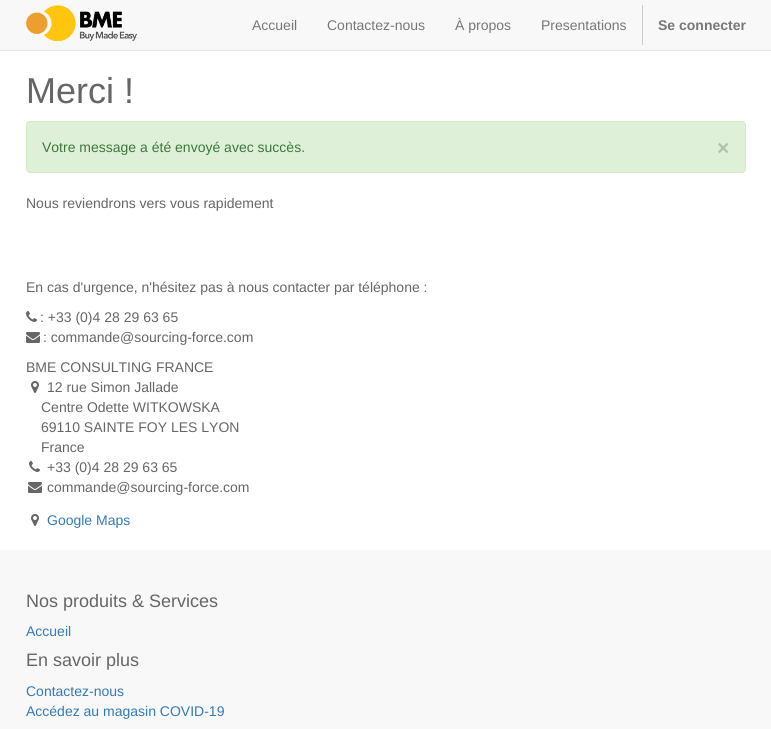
import math
import cairo

surface = cairo.ImageSurface(cairo.FORMAT_RGB24, 771, 729)
c = cairo.Context(surface)
options = cairo.FontOptions()
options.set_hint_metrics(cairo.HINT_METRICS_OFF)
options.set_hint_style(cairo.HINT_STYLE_NONE)
c.set_font_options(options)
c.set_miter_limit(4)
def C(code):
 c.set_source_rgb(*(v / 255 for v in bytes.fromhex(code[-6:])))
def F(family, size, italic, bold):
 c.select_font_face(family, cairo.FONT_SLANT_ITALIC if italic else cairo.FONT_SLANT_NORMAL, cairo.FONT_WEIGHT_BOLD if bold else cairo.FONT_WEIGHT_NORMAL)
 c.set_font_size(size)
def T(x, y, s):
 c.move_to(x, y)
 c.show_text(s)
def R(x, y, w, h):
 c.rectangle(x, y, w, h)
 c.fill()
def Q(x, y, w, h, r):
 c.new_sub_path()
 for i, (u, v) in enumerate([(x + w - r, y + h - r), (x + r, y + h - r), (x + r, y + r), (x + w - r, y + r)]):
  c.arc(u, v, r, i * math.pi / 2, (i + 1) * math.pi / 2)
 c.close_path()
def I(path, x, y, w, h):
 c.save()
 c.set_source_surface(cairo.ImageSurface.create_from_png(path), x, y)
 c.rectangle(x, y, w, h)
 c.fill()
 c.restore()
C('ffffff')
c.paint()
C('f8f8f8')
R(0,0,771,50)
C('e7e7e7')
R(0,50,771,1)
I('1.png',26,5,111,37)
F('Liberation Sans',14,0,0)
C('777777')
T(252,30,'Accueil')
T(327,30,'Contactez-nous')
T(455,30,'À propos')
T(541,30,'Presentations')
C('cccccc')
R(642,5,1,40)
F('Liberation Sans',14,0,1)
C('777777')
T(658,30,'Se connecter')
F('Liberation Sans',36,0,0)
C('666666')
T(26,103,'Merci !')
C('dff0d8')
Q(26.5,121.5,719,51,3.5)
c.fill_preserve()
C('d6e9c6')
c.set_line_width(1)
c.stroke()
F('Liberation Sans',14,0,0)
C('3c763d')
T(42,152,'Votre message a été envoyé avec succès.')
F('Liberation Sans',21,0,1)
C('b2c0ad')
T(717,155,'×')
F('Liberation Sans',14,0,0)
C('666666')
T(26,208,'Nous reviendrons vers vous rapidement')
T(26,292,'En cas d\'urgence, n\'hésitez pas à nous contacter par téléphone :')
I('2.png',26,311,11,11)
T(40,322,': +33 (0)4 28 29 63 65')
I('3.png',26,332,14,11)
T(43,342,': commande@sourcing-force.com')
T(26,372,'BME CONSULTING FRANCE')
I('4.png',31,381,8,12)
T(47,392,'12 rue Simon Jallade')
T(41,412,'Centre Odette WITKOWSKA')
T(41,432,'69110 SAINTE FOY LES LYON')
T(41,452,'France')
I('2.png',29,461,11,11)
T(47,472,'+33 (0)4 28 29 63 65')
I('3.png',28,482,14,11)
T(47,492,'commande@sourcing-force.com')
I('4.png',31,514,8,12)
C('337ab7')
T(47,525,'Google Maps')
C('f8f8f8')
R(0,550,771,179)
F('Liberation Sans',18,0,0)
C('666666')
T(26,607,'Nos produits & Services')
F('Liberation Sans',14,0,0)
C('337ab7')
T(26,636,'Accueil')
F('Liberation Sans',18,0,0)
C('666666')
T(26,666,'En savoir plus')
F('Liberation Sans',14,0,0)
C('337ab7')
T(26,696,'Contactez-nous')
T(26,716,'Accédez au magasin COVID-19')
surface.write_to_png('o.png')
